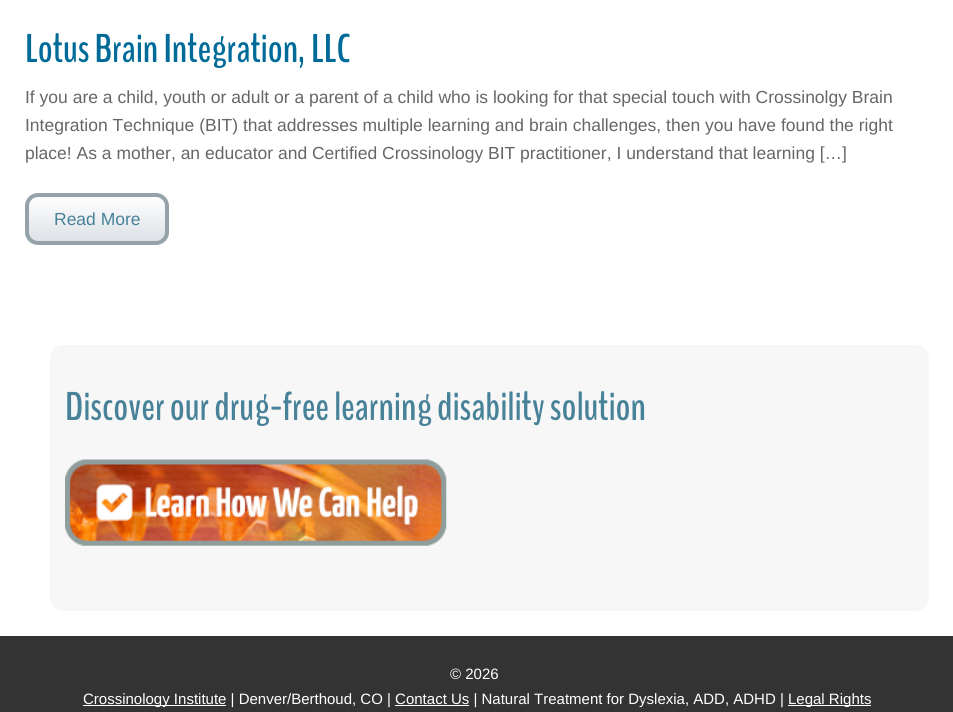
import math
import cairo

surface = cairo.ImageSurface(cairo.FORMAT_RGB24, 953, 712)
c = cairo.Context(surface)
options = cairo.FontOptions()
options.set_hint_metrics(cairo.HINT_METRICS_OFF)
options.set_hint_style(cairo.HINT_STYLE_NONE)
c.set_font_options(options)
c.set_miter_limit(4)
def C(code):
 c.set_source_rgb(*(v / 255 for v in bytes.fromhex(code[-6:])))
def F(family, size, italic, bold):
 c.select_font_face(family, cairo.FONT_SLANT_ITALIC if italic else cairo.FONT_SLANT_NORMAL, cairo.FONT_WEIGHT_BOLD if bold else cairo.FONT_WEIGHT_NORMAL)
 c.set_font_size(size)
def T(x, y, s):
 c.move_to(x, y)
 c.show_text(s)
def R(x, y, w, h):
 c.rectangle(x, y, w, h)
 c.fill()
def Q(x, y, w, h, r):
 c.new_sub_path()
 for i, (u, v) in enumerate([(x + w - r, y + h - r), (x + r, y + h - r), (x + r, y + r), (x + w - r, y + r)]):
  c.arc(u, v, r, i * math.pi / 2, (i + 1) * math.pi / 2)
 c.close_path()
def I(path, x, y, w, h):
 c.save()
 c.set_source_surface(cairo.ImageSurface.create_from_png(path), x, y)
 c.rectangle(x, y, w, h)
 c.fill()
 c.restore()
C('ffffff')
c.paint()
F('BenchNine',40,0,1)
C('006b99')
T(25,62,'Lotus Brain Integration, LLC')
F('Liberation Sans',17.5,0,0)
C('666666')
T(25,103,'If you are a child, youth or adult or a parent of a child who is looking for that special touch with Crossinolgy Brain')
T(25,131,'Integration Technique (BIT) that addresses multiple learning and brain challenges, then you have found the right')
T(25,159,'place! As a mother, an educator and Certified Crossinology BIT practitioner, I understand that learning […]')
c.save()
Q(25,193,144,52,13)
c.clip()
gradient = cairo.LinearGradient(97,196,97,241)
gradient.add_color_stop_rgba(0,1,1,1,1)
gradient.add_color_stop_rgba(1,0.867,0.886,0.902,1)
c.set_source(gradient)
R(25,196,144,45)
c.restore()
Q(27,195,140,48,11)
C('95a2aa')
c.set_line_width(4)
c.stroke()
C('488299')
T(54,225,'Read More')
C('f7f7f7')
Q(50,345,879,266,13)
c.fill()
F('BenchNine',40,0,1)
C('488299')
T(65,420,'Discover our drug-free learning disability solution')
I('1.png',65,459,382,87)
C('333333')
R(0,636,953,76)
F('Liberation Sans',15,0,0)
C('ffffff')
T(450,679,'© 2026')
R(83,705,143,1)
T(83,704,'Crossinology Institute | Denver/Berthoud, CO | Contact Us | Natural Treatment for Dyslexia, ADD, ADHD |')
R(395,705,74,1)
R(788,705,83,1)
T(788,704,'Legal Rights')
surface.write_to_png('o.png')
